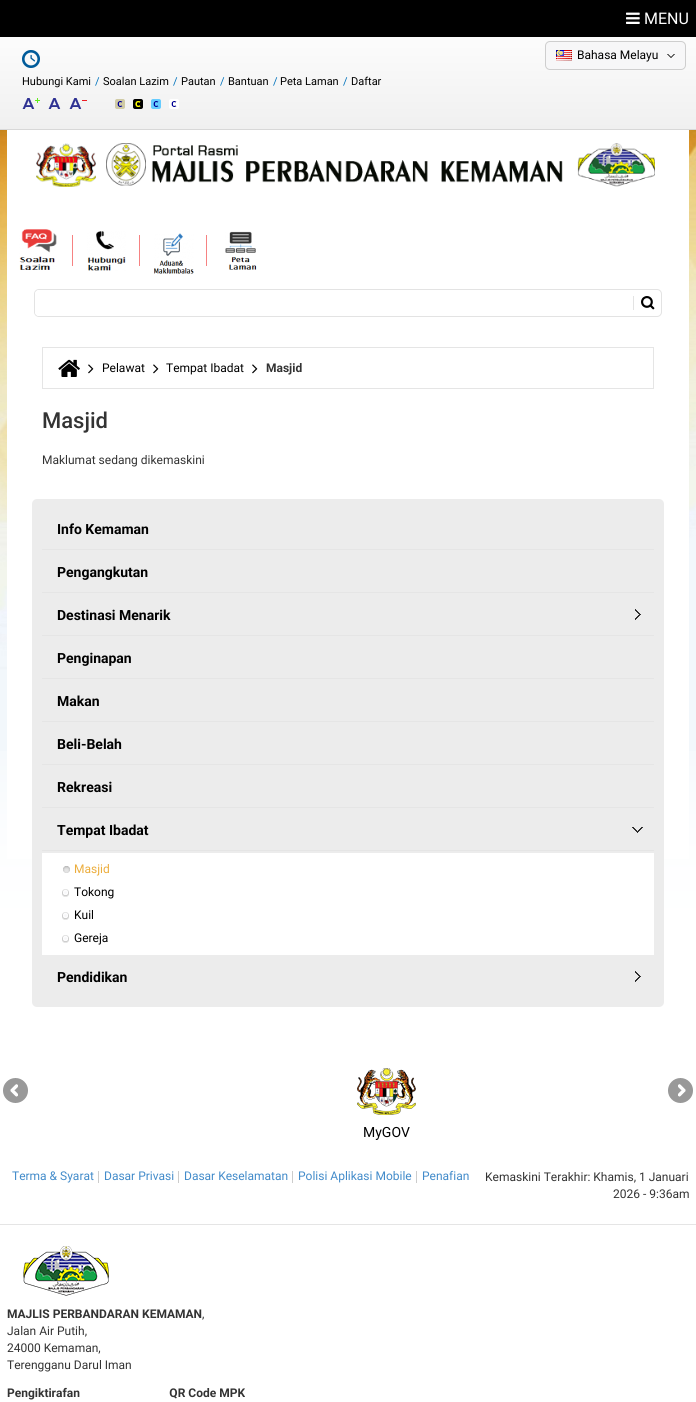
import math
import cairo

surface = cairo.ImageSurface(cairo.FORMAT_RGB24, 696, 1402)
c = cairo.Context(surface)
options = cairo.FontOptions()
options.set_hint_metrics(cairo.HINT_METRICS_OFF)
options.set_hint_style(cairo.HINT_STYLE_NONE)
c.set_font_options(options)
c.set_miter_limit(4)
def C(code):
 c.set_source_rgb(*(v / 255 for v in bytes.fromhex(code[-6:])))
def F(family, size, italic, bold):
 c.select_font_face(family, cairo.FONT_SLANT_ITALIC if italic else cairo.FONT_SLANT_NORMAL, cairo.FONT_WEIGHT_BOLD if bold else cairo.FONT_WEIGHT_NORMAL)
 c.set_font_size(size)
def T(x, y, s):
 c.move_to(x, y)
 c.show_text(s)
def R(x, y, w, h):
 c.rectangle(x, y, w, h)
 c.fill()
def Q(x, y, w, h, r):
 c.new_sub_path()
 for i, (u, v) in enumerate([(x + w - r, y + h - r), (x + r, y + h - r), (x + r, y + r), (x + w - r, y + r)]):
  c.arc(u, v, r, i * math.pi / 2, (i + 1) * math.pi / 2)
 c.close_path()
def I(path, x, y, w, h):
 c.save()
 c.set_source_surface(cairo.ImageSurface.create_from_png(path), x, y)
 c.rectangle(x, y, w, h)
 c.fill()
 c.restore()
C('ffffff')
c.paint()
C('000000')
R(0,0,696,37)
I('1.png',626,12,14,12)
F('Roboto',16,0,0)
C('ffffff')
T(644,24,'MENU')
gradient = cairo.LinearGradient(348,37,348,129)
gradient.add_color_stop_rgba(0,0.988,0.988,0.988,1)
gradient.add_color_stop_rgba(1,0.941,0.941,0.941,1)
c.set_source(gradient)
R(0,37,696,92)
C('d8d8d8')
R(0,129,696,1)
I('2.png',22,50,18,18)
C('f7f7f8')
Q(545.5,41.5,140,28,4.5)
c.fill_preserve()
C('cecece')
c.set_line_width(1)
c.stroke()
I('3.png',556,50,16,11)
F('Roboto',12,0,0)
C('000000')
T(577,59,'Bahasa Melayu')
I('4.png',667,54,8,4)
F('Roboto',11,0,0)
T(22,85,'Hubungi Kami')
C('0072bc')
T(95,85,'/')
C('000000')
T(103,85,'Soalan Lazim')
C('0072bc')
T(173,85,'/')
C('000000')
T(181,85,'Pautan')
C('0072bc')
T(220,85,'/')
C('000000')
T(228,85,'Bantuan')
C('0072bc')
T(273,85,'/')
C('000000')
T(280,85,'Peta Laman')
C('0072bc')
T(343,85,'/')
C('000000')
T(351,85,'Daftar')
I('5.png',22,98,18,11)
I('6.png',48,98,13,11)
I('7.png',69,98,18,11)
I('8.png',115,99,10,10)
I('9.png',133,99,10,10)
I('10.png',151,99,10,10)
I('11.png',169,99,10,10)
I('12.png',0,130,696,826)
I('25.png',0,751,696,286)
C('ffffff')
R(7,130,682,729)
I('13.png',36,143,619,44)
I('14.png',19,229,38,41)
C('f68282')
R(72,235,1,31)
I('15.png',87,231,39,40)
R(139,235,1,31)
I('16.png',154,233,40,41)
R(206,235,1,31)
I('17.png',225,231,32,39)
Q(34.5,289.5,627,27,4.5)
C('e3e3e3')
c.stroke()
C('ffffff')
Q(35,290,148,26,4)
c.fill()
C('e3e3e3')
R(633,296,1,14)
I('18.png',641,296,14,14)
c.rectangle(42.5,347.5,611,41)
C('e5e5e5')
c.stroke()
I('19.png',58,359,22,18)
I('20.png',88,364,6,10)
F('Roboto',12,0,0)
C('000000')
T(102,372,'Pelawat')
I('20.png',153,364,6,10)
T(166,372,'Tempat Ibadat')
I('20.png',252,364,6,10)
F('Roboto',12,0,1)
C('333333')
T(266,372,'Masjid')
F('Roboto Medium',22,0,0)
T(42,428,'Masjid')
F('Roboto',12,0,0)
T(42,464,'Maklumat sedang dikemaskini')
C('ececec')
Q(32,499,632,508,5)
c.fill()
C('e5e5e5')
R(42,549,612,1)
F('Roboto',14,0,1)
C('000000')
T(57,534,'Info Kemaman')
C('e5e5e5')
R(42,592,612,1)
C('000000')
T(57,577,'Pengangkutan')
C('e5e5e5')
R(42,635,612,1)
C('000000')
T(57,620,'Destinasi Menarik')
I('21.png',635,609,6,11)
C('e5e5e5')
R(42,678,612,1)
C('000000')
T(57,663,'Penginapan')
C('e5e5e5')
R(42,721,612,1)
C('000000')
T(57,706,'Makan')
C('e5e5e5')
R(42,764,612,1)
C('000000')
T(57,749,'Beli-Belah')
C('e5e5e5')
R(42,807,612,1)
C('000000')
T(57,792,'Rekreasi')
C('e5e5e5')
R(42,850,612,1)
C('000000')
T(57,835,'Tempat Ibadat')
I('22.png',632,827,11,6)
C('ffffff')
R(42,853,612,102)
I('23.png',63,866,7,7)
F('Roboto',12,0,0)
C('ecad3c')
T(74,873,'Masjid')
I('24.png',62,889,7,8)
C('000000')
T(74,896,'Tokong')
I('24.png',62,912,7,8)
T(74,919,'Kuil')
I('24.png',62,935,7,8)
T(74,942,'Gereja')
F('Roboto',14,0,1)
T(57,982,'Pendidikan')
I('21.png',635,971,6,11)
I('26.png',3,1078,25,25)
I('27.png',668,1078,25,25)
I('28.png',357,1068,59,47)
F('Roboto',14,0,0)
T(363,1137,'MyGOV')
F('Roboto',12,0,0)
C('428bca')
T(12,1180,'Terma & Syarat')
C('cccccc')
R(98,1171,1,12)
C('428bca')
T(104,1180,'Dasar Privasi')
C('cccccc')
R(178,1171,1,12)
C('428bca')
T(184,1180,'Dasar Keselamatan')
C('cccccc')
R(292,1171,1,12)
C('428bca')
T(298,1180,'Polisi Aplikasi Mobile')
C('cccccc')
R(416,1171,1,12)
C('428bca')
T(422,1180,'Penafian')
C('333333')
T(485,1181,'Kemaskini Terakhir: Khamis, 1 Januari')
T(613,1198,'2026 - 9:36am')
C('e5e5e5')
R(0,1224,696,1)
I('29.png',23,1246,86,50)
F('Roboto',12,0,1)
C('333333')
T(7,1318,'MAJLIS PERBANDARAN KEMAMAN')
F('Roboto',12,0,0)
T(202,1318,',')
T(7,1335,'Jalan Air Putih,')
T(7,1352,'24000 Kemaman,')
T(7,1369,'Terengganu Darul Iman')
F('Roboto',12,0,1)
T(7,1397,'Pengiktirafan                              QR Code MPK')
surface.write_to_png('o.png')
